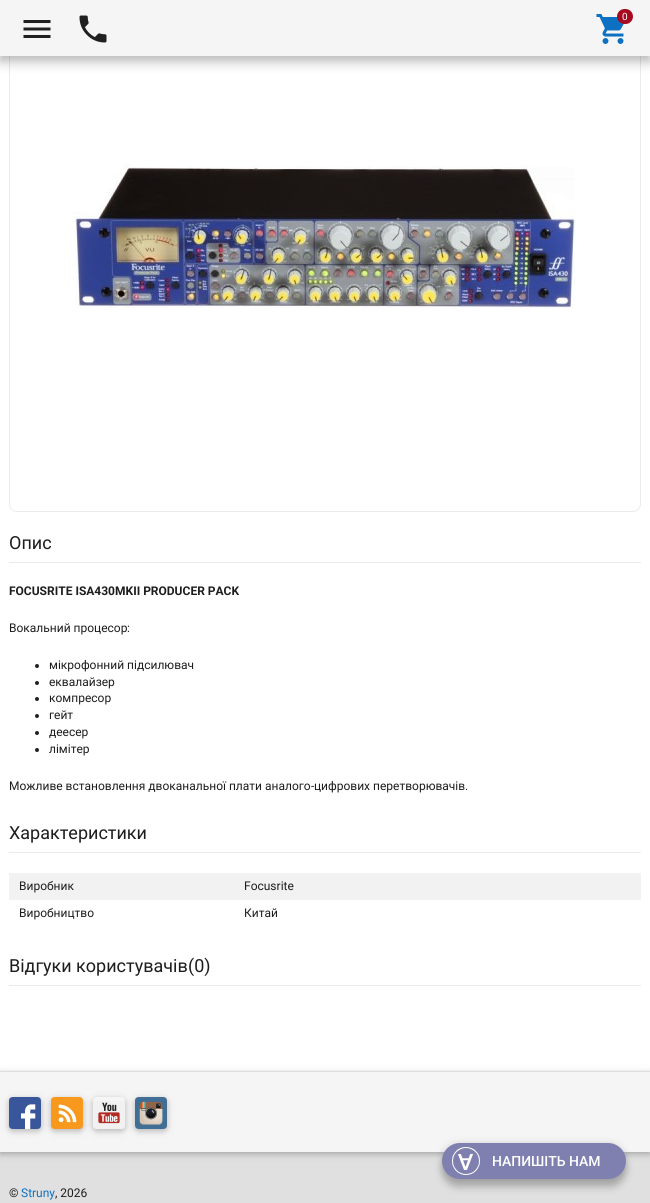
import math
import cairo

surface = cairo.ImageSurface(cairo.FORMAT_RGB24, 650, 1203)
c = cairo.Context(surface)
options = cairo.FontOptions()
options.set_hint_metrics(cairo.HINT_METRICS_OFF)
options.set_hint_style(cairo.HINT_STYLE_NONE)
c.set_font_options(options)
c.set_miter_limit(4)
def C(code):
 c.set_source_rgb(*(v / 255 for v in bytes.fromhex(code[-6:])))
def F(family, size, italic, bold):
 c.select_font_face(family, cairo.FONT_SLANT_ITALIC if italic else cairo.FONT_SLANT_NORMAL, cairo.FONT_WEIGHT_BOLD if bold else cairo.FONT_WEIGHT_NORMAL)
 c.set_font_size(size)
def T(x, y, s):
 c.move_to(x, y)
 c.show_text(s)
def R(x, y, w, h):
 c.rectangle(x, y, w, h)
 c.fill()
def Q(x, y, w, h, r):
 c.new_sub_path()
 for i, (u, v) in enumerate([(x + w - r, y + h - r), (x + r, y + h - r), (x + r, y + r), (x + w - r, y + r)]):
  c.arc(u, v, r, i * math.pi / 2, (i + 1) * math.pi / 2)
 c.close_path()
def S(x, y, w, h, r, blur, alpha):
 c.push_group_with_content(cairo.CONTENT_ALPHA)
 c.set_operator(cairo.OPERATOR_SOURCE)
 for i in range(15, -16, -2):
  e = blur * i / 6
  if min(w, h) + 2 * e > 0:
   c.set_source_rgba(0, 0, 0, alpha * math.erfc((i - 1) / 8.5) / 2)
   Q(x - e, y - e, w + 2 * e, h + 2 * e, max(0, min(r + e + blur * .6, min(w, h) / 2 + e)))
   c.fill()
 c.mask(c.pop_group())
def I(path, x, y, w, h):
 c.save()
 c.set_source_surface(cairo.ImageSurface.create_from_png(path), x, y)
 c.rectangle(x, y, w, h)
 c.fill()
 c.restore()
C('ffffff')
c.paint()
Q(9.5,-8.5,631,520,7.5)
C('ebebeb')
c.set_line_width(1)
c.stroke()
C('000000')
S(0,4,650,56,0,7.5,.15)
S(0,5,650,56,0,5.5,.18)
C('f5f5f5')
R(0,0,650,56)
I('1.png',23,20,28,18)
I('2.png',79,15,28,28)
I('3.png',596,14,29,30)
C('a70a1f')
Q(617,9,16,15,7.5)
c.fill()
F('Roboto',10,0,0)
C('ffffff')
T(622,20,'0')
I('4.png',75,164,500,144)
C('ebebeb')
R(9,562,632,1)
F('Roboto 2',18,0,0)
C('1d1d1d')
T(9,549,'Опис')
F('Roboto',12,0,1)
T(9,595,'FOCUSRITE ISA430MKII PRODUCER PACK')
F('Roboto 2',12,0,0)
T(9,632,'Вокальний процесор')
F('Roboto',12,0,0)
T(127,632,':')
C('212121')
c.new_path()
c.arc(37,666,2,0,2 * math.pi)
c.fill()
F('Roboto 2',12,0,0)
C('1d1d1d')
T(49,669,'мікрофонний підсилювач')
C('212121')
c.new_path()
c.arc(37,683,2,0,2 * math.pi)
c.fill()
C('1d1d1d')
T(49,686,'еквалайзер')
C('212121')
c.new_path()
c.arc(37,699,2,0,2 * math.pi)
c.fill()
C('1d1d1d')
T(49,702,'компресор')
C('212121')
c.new_path()
c.arc(37,716,2,0,2 * math.pi)
c.fill()
C('1d1d1d')
T(49,719,'гейт')
C('212121')
c.new_path()
c.arc(37,733,2,0,2 * math.pi)
c.fill()
C('1d1d1d')
T(49,736,'деесер')
C('212121')
c.new_path()
c.arc(37,750,2,0,2 * math.pi)
c.fill()
C('1d1d1d')
T(49,753,'лімітер')
T(9,790,'Можливе встановлення двоканальної плати аналого')
F('Roboto',12,0,0)
T(311,790,'-')
F('Roboto 2',12,0,0)
T(314,790,'цифрових перетворювачів')
F('Roboto',12,0,0)
T(465,790,'.')
C('ebebeb')
R(9,852,632,1)
F('Roboto 2',18,0,0)
C('1d1d1d')
T(9,839,'Характеристики')
C('f2f2f2')
R(9,873,632,27)
F('Roboto 2',12,0,0)
C('1d1d1d')
T(19,890,'Виробник')
F('Roboto',12,0,0)
T(244,890,'Focusrite')
F('Roboto 2',12,0,0)
T(19,917,'Виробництво')
T(244,917,'Китай')
C('ebebeb')
R(9,985,632,1)
F('Roboto 2',18,0,0)
C('1d1d1d')
T(9,972,'Відгуки користувачів')
F('Roboto',18,0,0)
T(188,972,'(0)')
C('e0e0e0')
R(0,1152,650,51)
C('000000')
S(0,1073,650,81,0,5,.12)
S(0,1073,650,81,0,2.5,.16)
C('f5f5f5')
R(0,1072,650,80)
C('000000')
S(442,1143,184,36,18,4,.12)
S(442,1151,184,36,18,4,.24)
C('7f80b0')
Q(442,1143,184,36,18)
c.fill()
I('5.png',452,1147,28,28)
F('Roboto Medium',14,0,0)
C('ffffff')
T(492,1166,'НАПИШІТЬ НАМ')
C('dedede')
R(0,1071,650,1)
C('000000')
S(9,1099,32,32,4,5,.12)
S(9,1099,32,32,4,2.5,.16)
I('6.png',9,1097,32,32)
S(51,1099,32,32,4,5,.12)
S(51,1099,32,32,4,2.5,.16)
I('7.png',51,1097,32,32)
c.save()
c.set_fill_rule(cairo.FILL_RULE_EVEN_ODD)
c.new_path()
c.move_to(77,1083)
c.line_to(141,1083)
c.line_to(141,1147)
c.line_to(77,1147)
c.close_path()
c.move_to(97,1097)
c.line_to(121,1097)
c.curve_to(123,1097,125,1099,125,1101)
c.line_to(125,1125)
c.curve_to(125,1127,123,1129,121,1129)
c.line_to(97,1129)
c.curve_to(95,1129,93,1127,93,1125)
c.line_to(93,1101)
c.curve_to(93,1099,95,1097,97,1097)
c.close_path()
c.clip()
S(93,1099,32,32,4,5,.12)
c.restore()
c.save()
c.set_fill_rule(cairo.FILL_RULE_EVEN_ODD)
c.new_path()
c.move_to(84,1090)
c.line_to(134,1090)
c.line_to(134,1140)
c.line_to(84,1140)
c.close_path()
c.move_to(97,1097)
c.line_to(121,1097)
c.curve_to(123,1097,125,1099,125,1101)
c.line_to(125,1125)
c.curve_to(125,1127,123,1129,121,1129)
c.line_to(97,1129)
c.curve_to(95,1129,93,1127,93,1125)
c.line_to(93,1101)
c.curve_to(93,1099,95,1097,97,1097)
c.close_path()
c.clip()
S(93,1099,32,32,4,2.5,.16)
c.restore()
I('8.png',93,1101,32,28)
S(135,1099,32,32,4,5,.12)
S(135,1099,32,32,4,2.5,.16)
I('9.png',135,1097,32,32)
F('Roboto',12,0,0)
C('1d1d1d')
T(9,1197,'©')
C('0c71c3')
T(21,1197,'Struny')
C('1d1d1d')
T(55,1197,', 2026')
surface.write_to_png('o.png')
